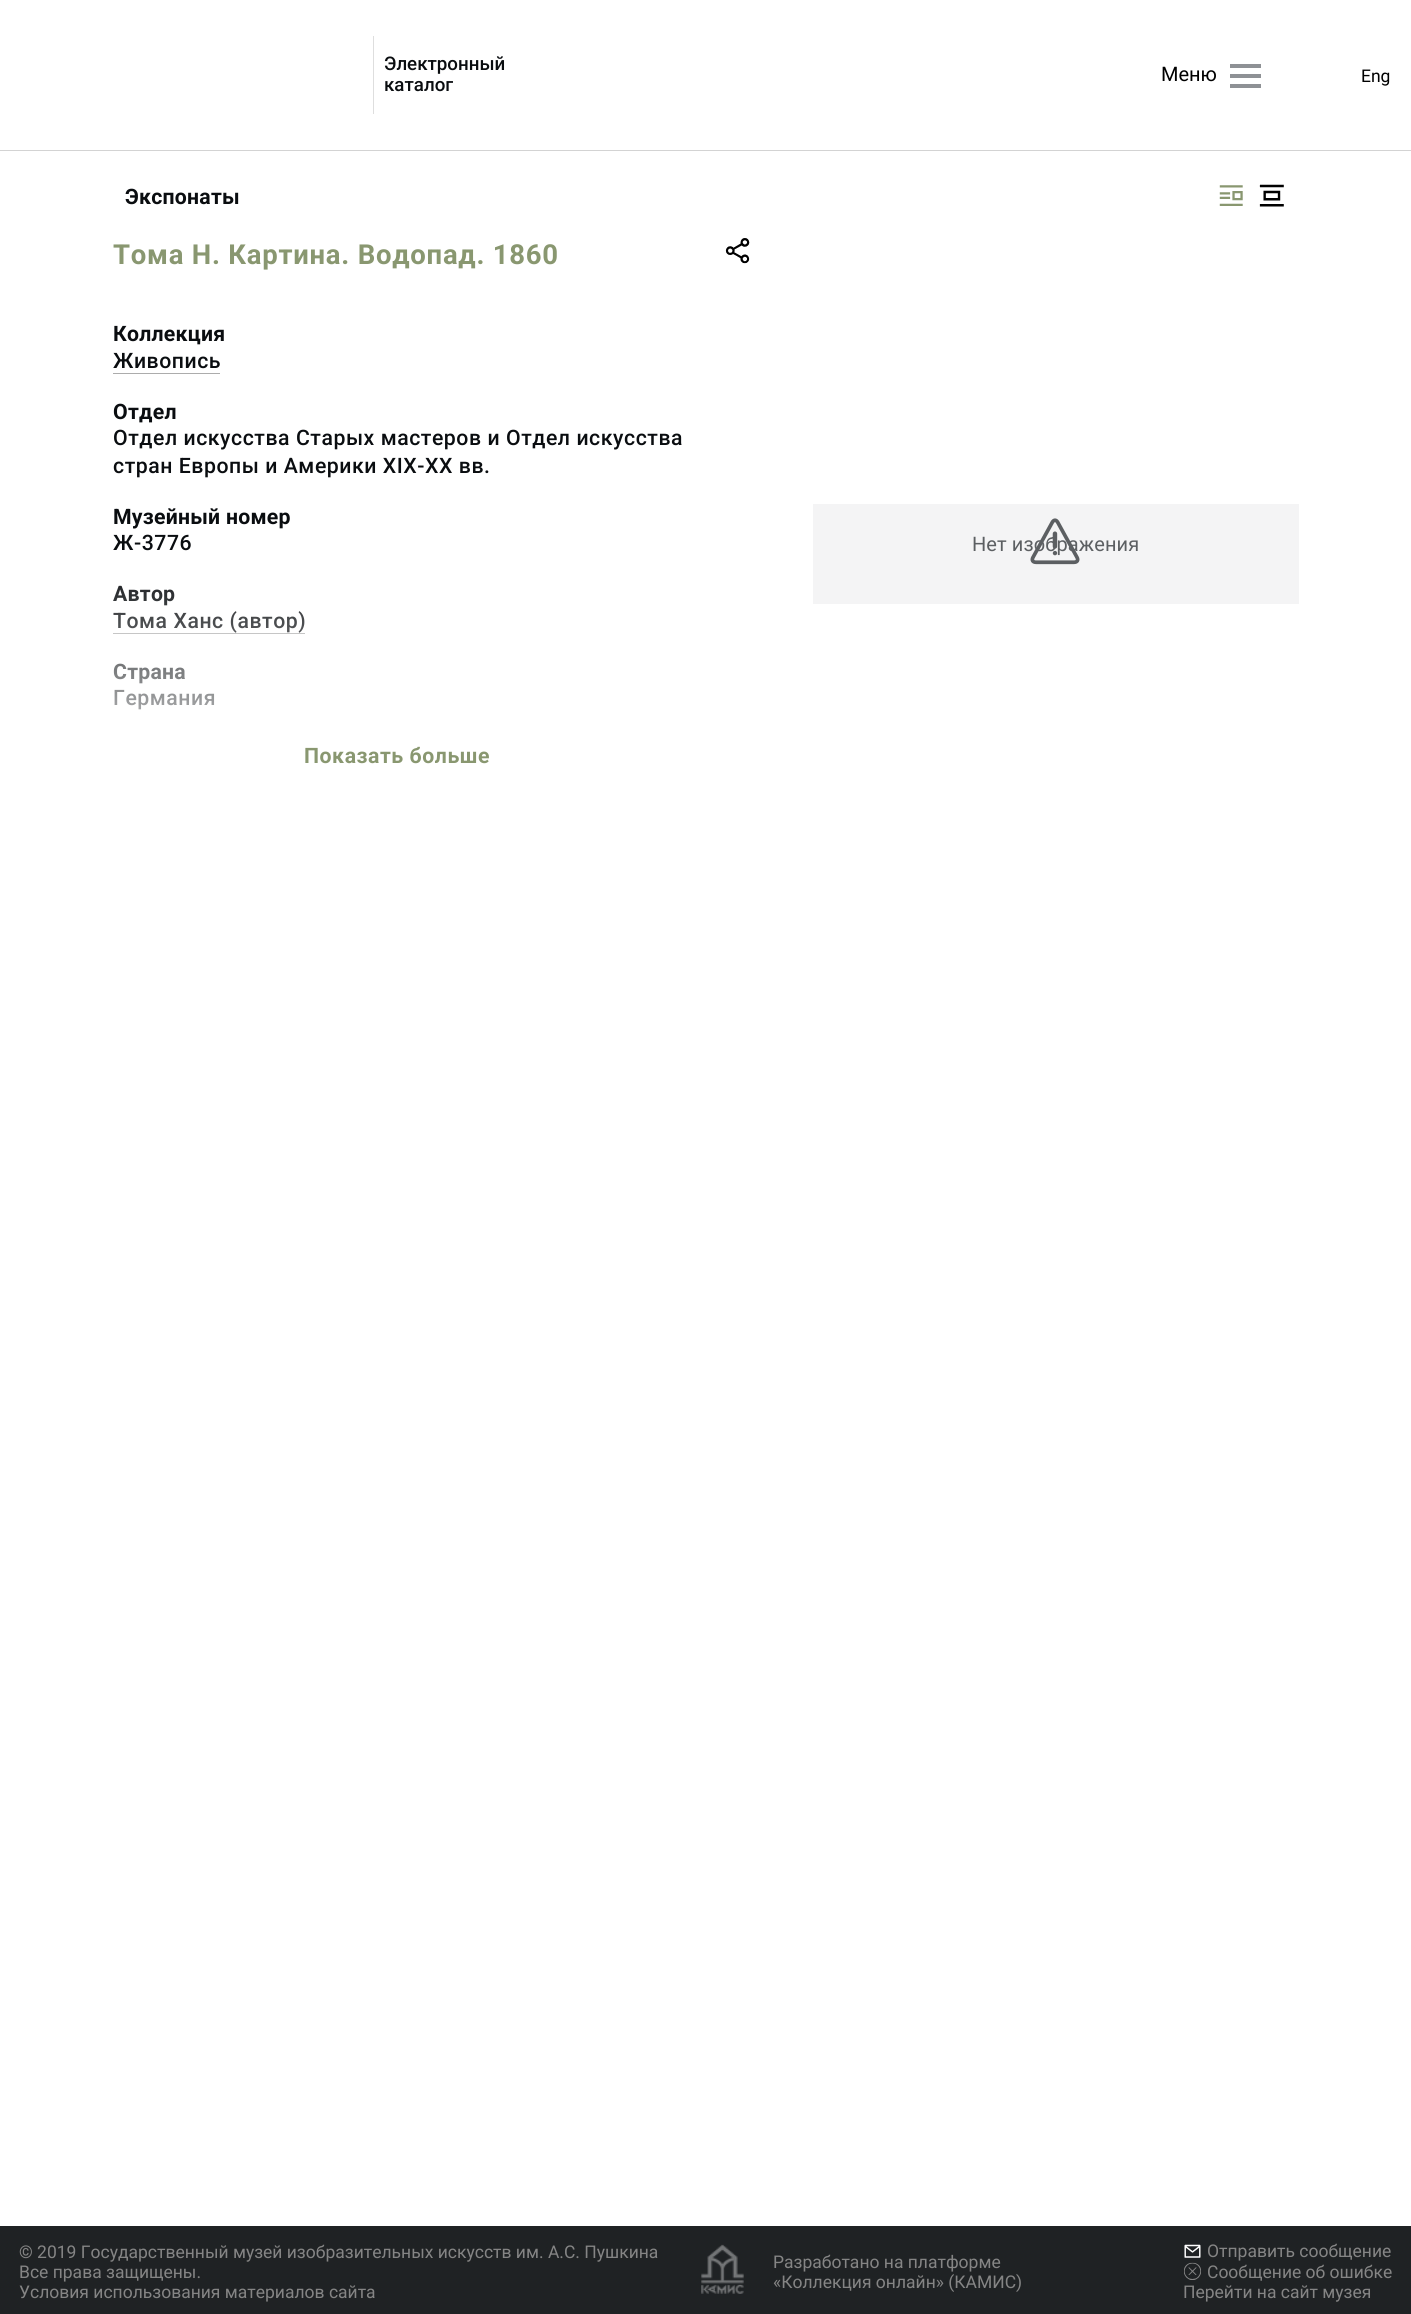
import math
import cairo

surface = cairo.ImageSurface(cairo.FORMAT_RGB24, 1411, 2314)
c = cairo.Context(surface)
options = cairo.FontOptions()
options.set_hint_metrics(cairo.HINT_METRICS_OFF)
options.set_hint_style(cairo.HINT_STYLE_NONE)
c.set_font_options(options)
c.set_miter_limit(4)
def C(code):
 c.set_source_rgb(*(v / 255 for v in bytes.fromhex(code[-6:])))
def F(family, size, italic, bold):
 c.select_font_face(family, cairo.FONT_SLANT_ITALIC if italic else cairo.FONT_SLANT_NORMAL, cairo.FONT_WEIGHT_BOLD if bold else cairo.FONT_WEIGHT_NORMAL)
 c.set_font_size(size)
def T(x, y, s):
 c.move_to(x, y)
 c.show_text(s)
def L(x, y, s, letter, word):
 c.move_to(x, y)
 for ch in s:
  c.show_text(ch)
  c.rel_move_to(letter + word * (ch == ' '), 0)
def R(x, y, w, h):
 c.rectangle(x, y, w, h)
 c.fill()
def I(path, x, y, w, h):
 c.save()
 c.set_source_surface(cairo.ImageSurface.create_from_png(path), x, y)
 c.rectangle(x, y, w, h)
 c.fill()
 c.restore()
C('ffffff')
c.paint()
C('d3d3d3')
R(0,150,1411,1)
C('dedede')
R(373,36,1,78)
F('Roboto Medium',18.75,0,0)
C('0a0d10')
T(384,70,'Электронный')
T(384,91,'каталог')
F('Roboto',20,0,0)
C('000000')
T(1161,81,'Меню')
C('8e9195')
R(1230,64,31,4)
R(1230,74,31,4)
R(1230,84,31,4)
F('Roboto',17.5,0,0)
C('000000')
T(1361,82,'Eng')
F('Roboto',21.25,0,1)
C('0a0d10')
L(125,204,'Экспонаты',.25,0)
I('1.png',1219,185,24,21)
I('2.png',1259,184,25,23)
F('Roboto',27.5,0,1)
C('899770')
L(113,264,'Тома H. Картина. Водопад. 1860',.75,0)
I('3.png',725,238,25,26)
F('Roboto',21.25,0,1)
C('0a0d10')
L(113,341,'Коллекция',.25,0)
F('Roboto Medium',21.25,0,0)
L(113,368,'Живопись',.55,0)
C('acacac')
R(113,373,107,1)
F('Roboto',21.25,0,1)
C('0a0d10')
L(113,419,'Отдел',.25,0)
F('Roboto Medium',21.25,0,0)
L(113,445,'Отдел искусства Старых мастеров и Отдел искусства',.55,0)
L(113,473,'стран Европы и Америки XIX-XX вв.',.55,0)
F('Roboto',21.25,0,1)
L(113,524,'Музейный номер',.25,0)
F('Roboto Medium',21.25,0,0)
L(113,550,'Ж-3776',.55,0)
F('Roboto',21.25,0,1)
L(113,601,'Автор',.25,0)
F('Roboto Medium',21.25,0,0)
L(113,628,'Тома Ханс (автор)',.55,0)
C('acacac')
R(113,633,192,1)
F('Roboto',21.25,0,1)
C('0a0d10')
L(113,679,'Страна',.25,0)
F('Roboto Medium',21.25,0,0)
L(113,705,'Германия',.55,0)
gradient = cairo.LinearGradient(398,561,398,861)
gradient.add_color_stop_rgba(0,1,1,1,.01)
gradient.add_color_stop_rgba(.8,1,1,1,1)
c.set_source(gradient)
R(113,585,192,125)
F('Roboto',21.25,0,1)
C('899770')
L(304,763,'Показать больше',.55,0)
C('f4f4f5')
R(813,504,486,100)
F('Roboto',20,0,0)
C('5c5f62')
L(972,551,'Нет изображения',.1,0)
I('4.png',1030,518,50,47)
C('1f2224')
R(0,2226,1411,88)
F('Roboto',17.5,0,0)
C('858585')
T(19,2258,'© 2019 Государственный музей изобразительных искусств им. А.С. Пушкина')
T(19,2278,'Все права защищены.')
T(19,2298,'Условия использования материалов сайта')
I('5.png',701,2244,43,50)
T(773,2268,'Разработано на платформе')
T(773,2288,'«Коллекция онлайн» (КАМИС)')
I('6.png',1184,2244,17,14)
T(1207,2257,'Отправить сообщение')
I('7.png',1184,2262,17,18)
T(1207,2278,'Сообщение об ошибке')
T(1183,2298,'Перейти на сайт музея')
surface.write_to_png('o.png')
